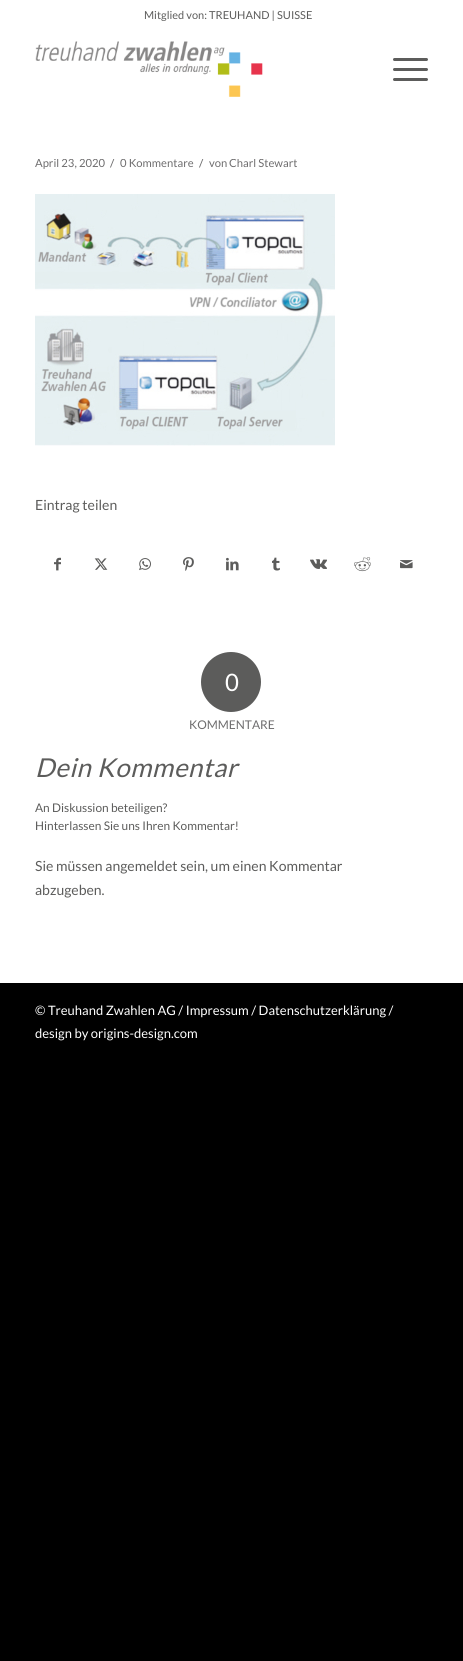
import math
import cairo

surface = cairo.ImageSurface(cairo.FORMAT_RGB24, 463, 1661)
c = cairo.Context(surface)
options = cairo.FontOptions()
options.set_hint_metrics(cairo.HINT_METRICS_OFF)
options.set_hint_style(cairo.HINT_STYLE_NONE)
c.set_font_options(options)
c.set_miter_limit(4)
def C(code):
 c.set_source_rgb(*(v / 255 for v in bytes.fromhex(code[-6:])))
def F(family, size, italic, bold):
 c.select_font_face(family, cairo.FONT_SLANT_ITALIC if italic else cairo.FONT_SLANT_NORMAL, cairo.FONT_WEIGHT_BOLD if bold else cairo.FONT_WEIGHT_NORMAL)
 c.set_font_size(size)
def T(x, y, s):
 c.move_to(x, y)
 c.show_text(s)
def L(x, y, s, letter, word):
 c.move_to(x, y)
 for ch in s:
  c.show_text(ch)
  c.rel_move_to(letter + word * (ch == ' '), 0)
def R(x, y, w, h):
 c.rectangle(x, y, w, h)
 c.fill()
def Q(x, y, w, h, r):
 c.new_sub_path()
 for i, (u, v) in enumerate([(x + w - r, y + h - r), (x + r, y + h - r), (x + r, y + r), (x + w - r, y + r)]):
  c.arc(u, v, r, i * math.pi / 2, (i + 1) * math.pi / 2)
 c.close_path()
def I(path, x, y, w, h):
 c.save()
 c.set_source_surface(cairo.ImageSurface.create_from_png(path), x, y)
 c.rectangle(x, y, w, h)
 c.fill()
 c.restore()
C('000000')
c.paint()
C('ffffff')
R(0,0,463,983)
F('Lato',11,0,0)
C('5c5c5b')
T(144,19,'Mitglied von: TREUHAND | SUISSE')
I('1.png',35,41,228,56)
Q(393,68,35,3,1.5)
c.fill()
Q(393,58,35,3,1.5)
c.fill()
Q(393,78,35,3,1.5)
c.fill()
c.save()
c.rectangle(35,159,393,493)
c.clip()
F('Lato',11.25,0,0)
C('6e6d6e')
T(35,167,'April 23, 2020')
F('Lato',13,0,0)
T(110,167,'/')
F('Lato',11.25,0,0)
T(120,167,'0 Kommentare')
F('Lato',13,0,0)
T(199,167,'/')
c.restore()
F('Lato',11.25,0,0)
C('6e6d6e')
T(209,167,'von')
c.save()
c.rectangle(35,159,393,493)
c.clip()
T(229,167,'Charl Stewart')
c.restore()
I('2.png',35,194,300,252)
F('Lato',14,0,0)
C('5c5c5b')
T(35,510,'Eintrag teilen')
I('3.png',54,557,7,14)
I('4.png',94,558,14,12)
I('5.png',139,558,12,13)
I('6.png',183,557,11,14)
I('7.png',226,557,13,14)
I('8.png',272,557,8,14)
I('9.png',310,559,17,10)
I('10.png',354,557,17,15)
I('11.png',400,560,13,9)
c.arc(231,682,30,0,2 * math.pi)
c.fill()
F('Lato',24,0,0)
C('ffffff')
T(225,691,'0')
F('Lato',12,0,0)
C('6e6d6e')
T(189,729,'KOMMENTARE')
F('Lato',26,1,0)
C('5c5c5b')
L(35,777,'Dein Kommentar',.5,0)
F('Lato',11.9,0,0)
T(35,812,'An Diskussion beteiligen?')
T(35,830,'Hinterlassen Sie uns Ihren Kommentar!')
F('Lato',14,0,0)
T(35,871,'Sie müssen angemeldet sein, um einen Kommentar')
T(35,895,'abzugeben.')
F('Lato',13,0,0)
C('ffffff')
T(35,1015,'© Treuhand Zwahlen AG / Impressum / Datenschutzerklärung /')
T(35,1038,'design by origins-design.com')
surface.write_to_png('o.png')
